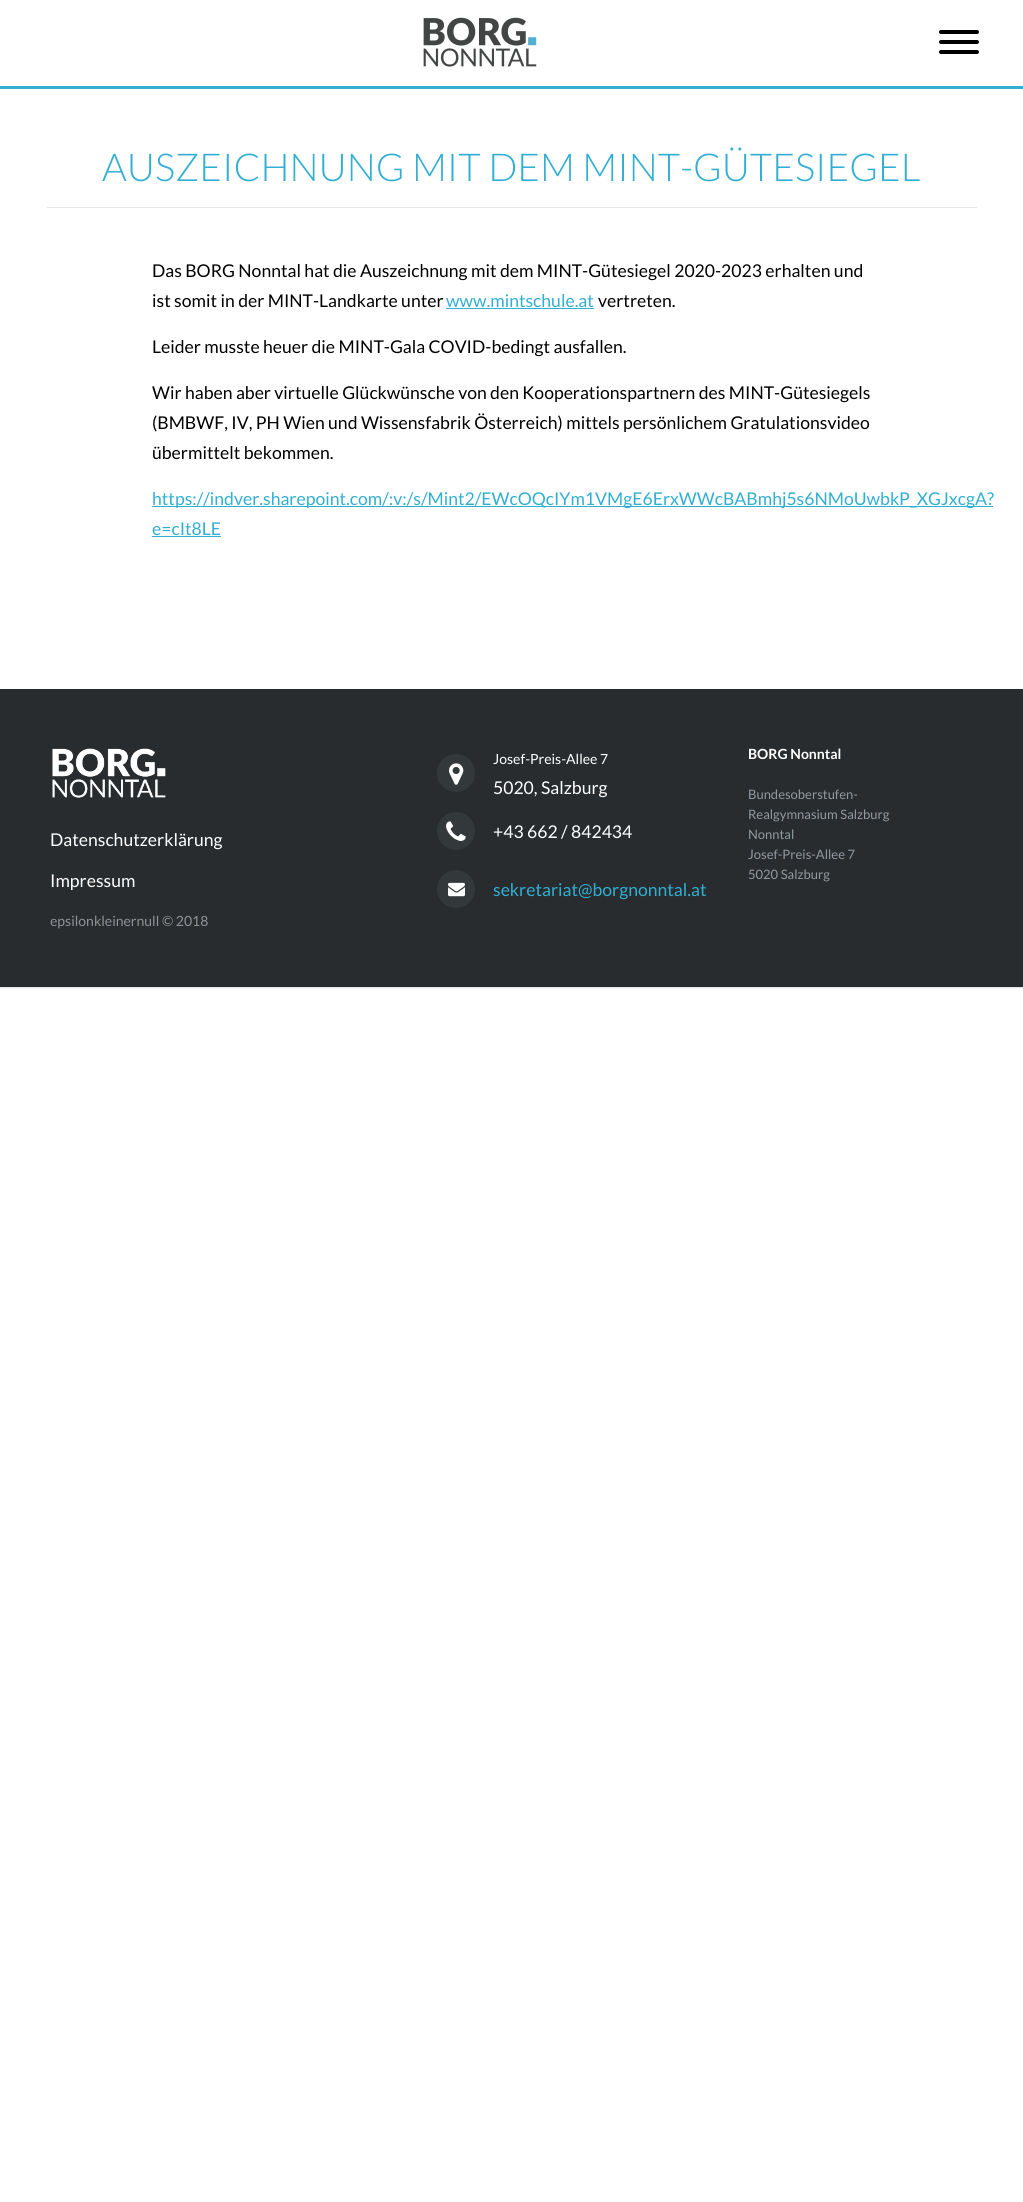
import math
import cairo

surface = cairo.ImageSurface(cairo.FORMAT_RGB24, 1023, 2202)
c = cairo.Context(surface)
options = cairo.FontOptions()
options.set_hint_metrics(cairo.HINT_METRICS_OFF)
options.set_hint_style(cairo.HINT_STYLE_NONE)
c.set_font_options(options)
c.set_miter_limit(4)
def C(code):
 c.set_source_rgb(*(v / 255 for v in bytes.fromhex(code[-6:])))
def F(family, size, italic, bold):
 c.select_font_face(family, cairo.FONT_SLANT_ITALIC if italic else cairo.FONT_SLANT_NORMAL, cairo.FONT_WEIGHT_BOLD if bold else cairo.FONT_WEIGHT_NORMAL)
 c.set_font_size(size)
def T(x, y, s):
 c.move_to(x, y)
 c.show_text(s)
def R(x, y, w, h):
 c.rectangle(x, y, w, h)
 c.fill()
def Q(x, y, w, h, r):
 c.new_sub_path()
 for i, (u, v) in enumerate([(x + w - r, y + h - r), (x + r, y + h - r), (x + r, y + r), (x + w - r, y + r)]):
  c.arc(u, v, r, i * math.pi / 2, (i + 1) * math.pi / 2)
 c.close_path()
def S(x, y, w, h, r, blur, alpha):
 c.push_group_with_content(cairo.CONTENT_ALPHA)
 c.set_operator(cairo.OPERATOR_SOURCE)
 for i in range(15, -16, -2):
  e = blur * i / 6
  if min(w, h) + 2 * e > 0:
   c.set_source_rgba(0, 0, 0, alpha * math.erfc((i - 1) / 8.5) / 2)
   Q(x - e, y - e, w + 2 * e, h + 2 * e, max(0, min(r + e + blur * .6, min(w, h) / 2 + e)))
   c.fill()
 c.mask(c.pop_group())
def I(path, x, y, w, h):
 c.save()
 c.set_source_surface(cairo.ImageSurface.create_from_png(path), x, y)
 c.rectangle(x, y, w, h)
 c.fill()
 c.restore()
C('ffffff')
c.paint()
C('31afd2')
R(0,86,1023,3)
I('1.png',423,17,114,50)
C('000000')
Q(939,40,40,4,2)
c.fill()
Q(939,30,40,4,2)
c.fill()
Q(939,50,40,4,2)
c.fill()
F('Lato Light',38.4,0,0)
C('31afd2')
T(102,181,'AUSZEICHNUNG MIT DEM MINT-GÜTESIEGEL')
C('e6e6e6')
R(47,207,930,1)
F('Lato',17.6,0,0)
C('000000')
T(152,277,'Das BORG Nonntal hat die Auszeichnung mit dem MINT-Gütesiegel 2020-2023 erhalten und')
T(152,307,'ist somit in der MINT-Landkarte unter')
C('31afd2')
T(446,307,'www.mintschule.at')
R(446,308,148,1)
C('000000')
T(598,307,'vertreten.')
T(152,353,'Leider musste heuer die MINT-Gala COVID-bedingt ausfallen.')
T(152,399,'Wir haben aber virtuelle Glückwünsche von den Kooperationspartnern des MINT-Gütesiegels')
T(152,429,'(BMBWF, IV, PH Wien und Wissensfabrik Österreich) mittels persönlichem Gratulationsvideo')
T(152,459,'übermittelt bekommen.')
C('31afd2')
R(152,506,841,1)
T(152,505,'https://indver.sharepoint.com/:v:/s/Mint2/EWcOQcIYm1VMgE6ErxWWcBABmhj5s6NMoUwbkP_XGJxcgA?')
T(152,535,'e=cIt8LE')
R(152,536,69,1)
C('000000')
S(0,690,1023,298,0,.5,.12)
C('292c2f')
R(0,689,1023,298)
I('2.png',52,748,114,50)
C('ffffff')
T(50,846,'Datenschutzerklärung')
T(50,887,'Impressum')
F('Lato',14,0,0)
C('8f9296')
T(50,926,'epsilonkleinernull © 2018')
C('33383b')
c.new_path()
c.arc(456,773,19,0,2 * math.pi)
c.fill()
I('3.png',449,763,15,22)
C('ffffff')
T(493,764,'Josef-Preis-Allee 7')
F('Lato',17.6,0,0)
T(493,794,'5020, Salzburg')
C('33383b')
c.new_path()
c.arc(456,831,19,0,2 * math.pi)
c.fill()
I('4.png',446,821,20,20)
C('ffffff')
T(493,838,'+43 662 / 842434')
C('33383b')
c.new_path()
c.arc(456,889,19,0,2 * math.pi)
c.fill()
I('5.png',448,882,17,15)
C('31afd2')
T(493,896,'sekretariat@borgnonntal.at')
F('Lato',14,0,1)
C('ffffff')
T(748,759,'BORG Nonntal')
F('Lato',13,0,0)
C('92999f')
T(748,799,'Bundesoberstufen-')
T(748,819,'Realgymnasium Salzburg')
T(748,839,'Nonntal')
T(748,859,'Josef-Preis-Allee 7')
T(748,879,'5020 Salzburg')
surface.write_to_png('o.png')
